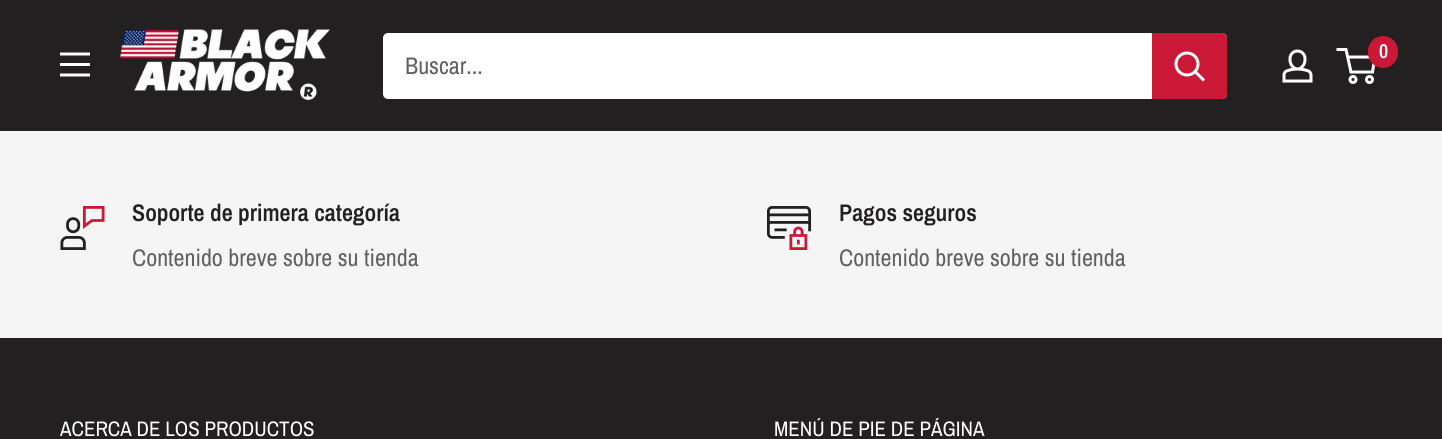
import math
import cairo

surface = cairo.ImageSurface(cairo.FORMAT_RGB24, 1442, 439)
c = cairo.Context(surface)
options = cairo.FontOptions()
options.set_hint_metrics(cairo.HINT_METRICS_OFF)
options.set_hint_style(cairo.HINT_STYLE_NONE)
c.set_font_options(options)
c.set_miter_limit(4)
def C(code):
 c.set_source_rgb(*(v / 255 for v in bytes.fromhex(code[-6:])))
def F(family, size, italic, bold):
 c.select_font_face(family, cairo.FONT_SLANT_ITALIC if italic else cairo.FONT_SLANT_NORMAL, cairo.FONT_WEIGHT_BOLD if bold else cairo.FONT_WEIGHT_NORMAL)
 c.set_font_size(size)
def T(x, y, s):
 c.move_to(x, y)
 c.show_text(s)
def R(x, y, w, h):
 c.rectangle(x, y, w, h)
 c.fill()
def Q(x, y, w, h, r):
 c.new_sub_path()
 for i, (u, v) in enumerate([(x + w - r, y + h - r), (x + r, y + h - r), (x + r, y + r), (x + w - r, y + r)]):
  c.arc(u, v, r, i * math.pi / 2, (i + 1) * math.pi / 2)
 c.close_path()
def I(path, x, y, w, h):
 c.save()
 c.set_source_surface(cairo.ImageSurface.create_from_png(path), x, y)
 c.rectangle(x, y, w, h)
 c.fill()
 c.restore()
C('f5f5f5')
c.paint()
C('222021')
R(0,0,1442,131)
I('1.png',60,52,30,25)
I('2.png',120,29,210,71)
C('ffffff')
Q(383,33,844,66,5)
c.fill()
F('Archivo Narrow',24,0,0)
C('616161')
T(405,74,'Buscar...')
C('cb1836')
c.new_path()
c.move_to(1152,33)
c.line_to(1222,33)
c.curve_to(1225,33,1227,35,1227,38)
c.line_to(1227,94)
c.curve_to(1227,97,1225,99,1222,99)
c.line_to(1152,99)
c.close_path()
c.fill()
c.new_path()
c.move_to(1203,79.5)
c.line_to(1195.5,72)
C('ffffff')
c.set_line_width(3)
c.set_line_cap(cairo.LINE_CAP_SQUARE)
c.stroke()
c.arc(1187,64,11,0,2 * math.pi)
c.set_line_cap(cairo.LINE_CAP_BUTT)
c.stroke()
I('3.png',1282,49,31,34)
c.arc(1353,79.5,3,0,2 * math.pi)
c.stroke()
c.arc(1369.5,79.5,3,0,2 * math.pi)
c.stroke()
c.new_path()
c.move_to(1347.5,57)
c.line_to(1375,57)
c.line_to(1372.5,72)
c.line_to(1351,72)
c.line_to(1346,49.5)
c.line_to(1336.5,49.5)
c.stroke()
C('cb1836')
Q(1368,36,30,32,15)
c.fill()
F('Archivo Narrow SemiBold',20,0,0)
C('ffffff')
T(1379,58,'0')
I('4.png',60,206,45,44)
F('Archivo Narrow SemiBold',24,0,0)
C('222021')
T(132,221,'Soporte de primera categoría')
F('Archivo Narrow',24,0,0)
C('616161')
T(132,266,'Contenido breve sobre su tienda')
I('5.png',767,206,45,44)
F('Archivo Narrow SemiBold',24,0,0)
C('222021')
T(839,221,'Pagos seguros')
F('Archivo Narrow',24,0,0)
C('616161')
T(839,266,'Contenido breve sobre su tienda')
C('222021')
R(0,338,1442,101)
F('Archivo Narrow',21,0,0)
C('ffffff')
T(60,436,'ACERCA DE LOS PRODUCTOS')
T(774,436,'MENÚ DE PIE DE PÁGINA')
surface.write_to_png('o.png')
